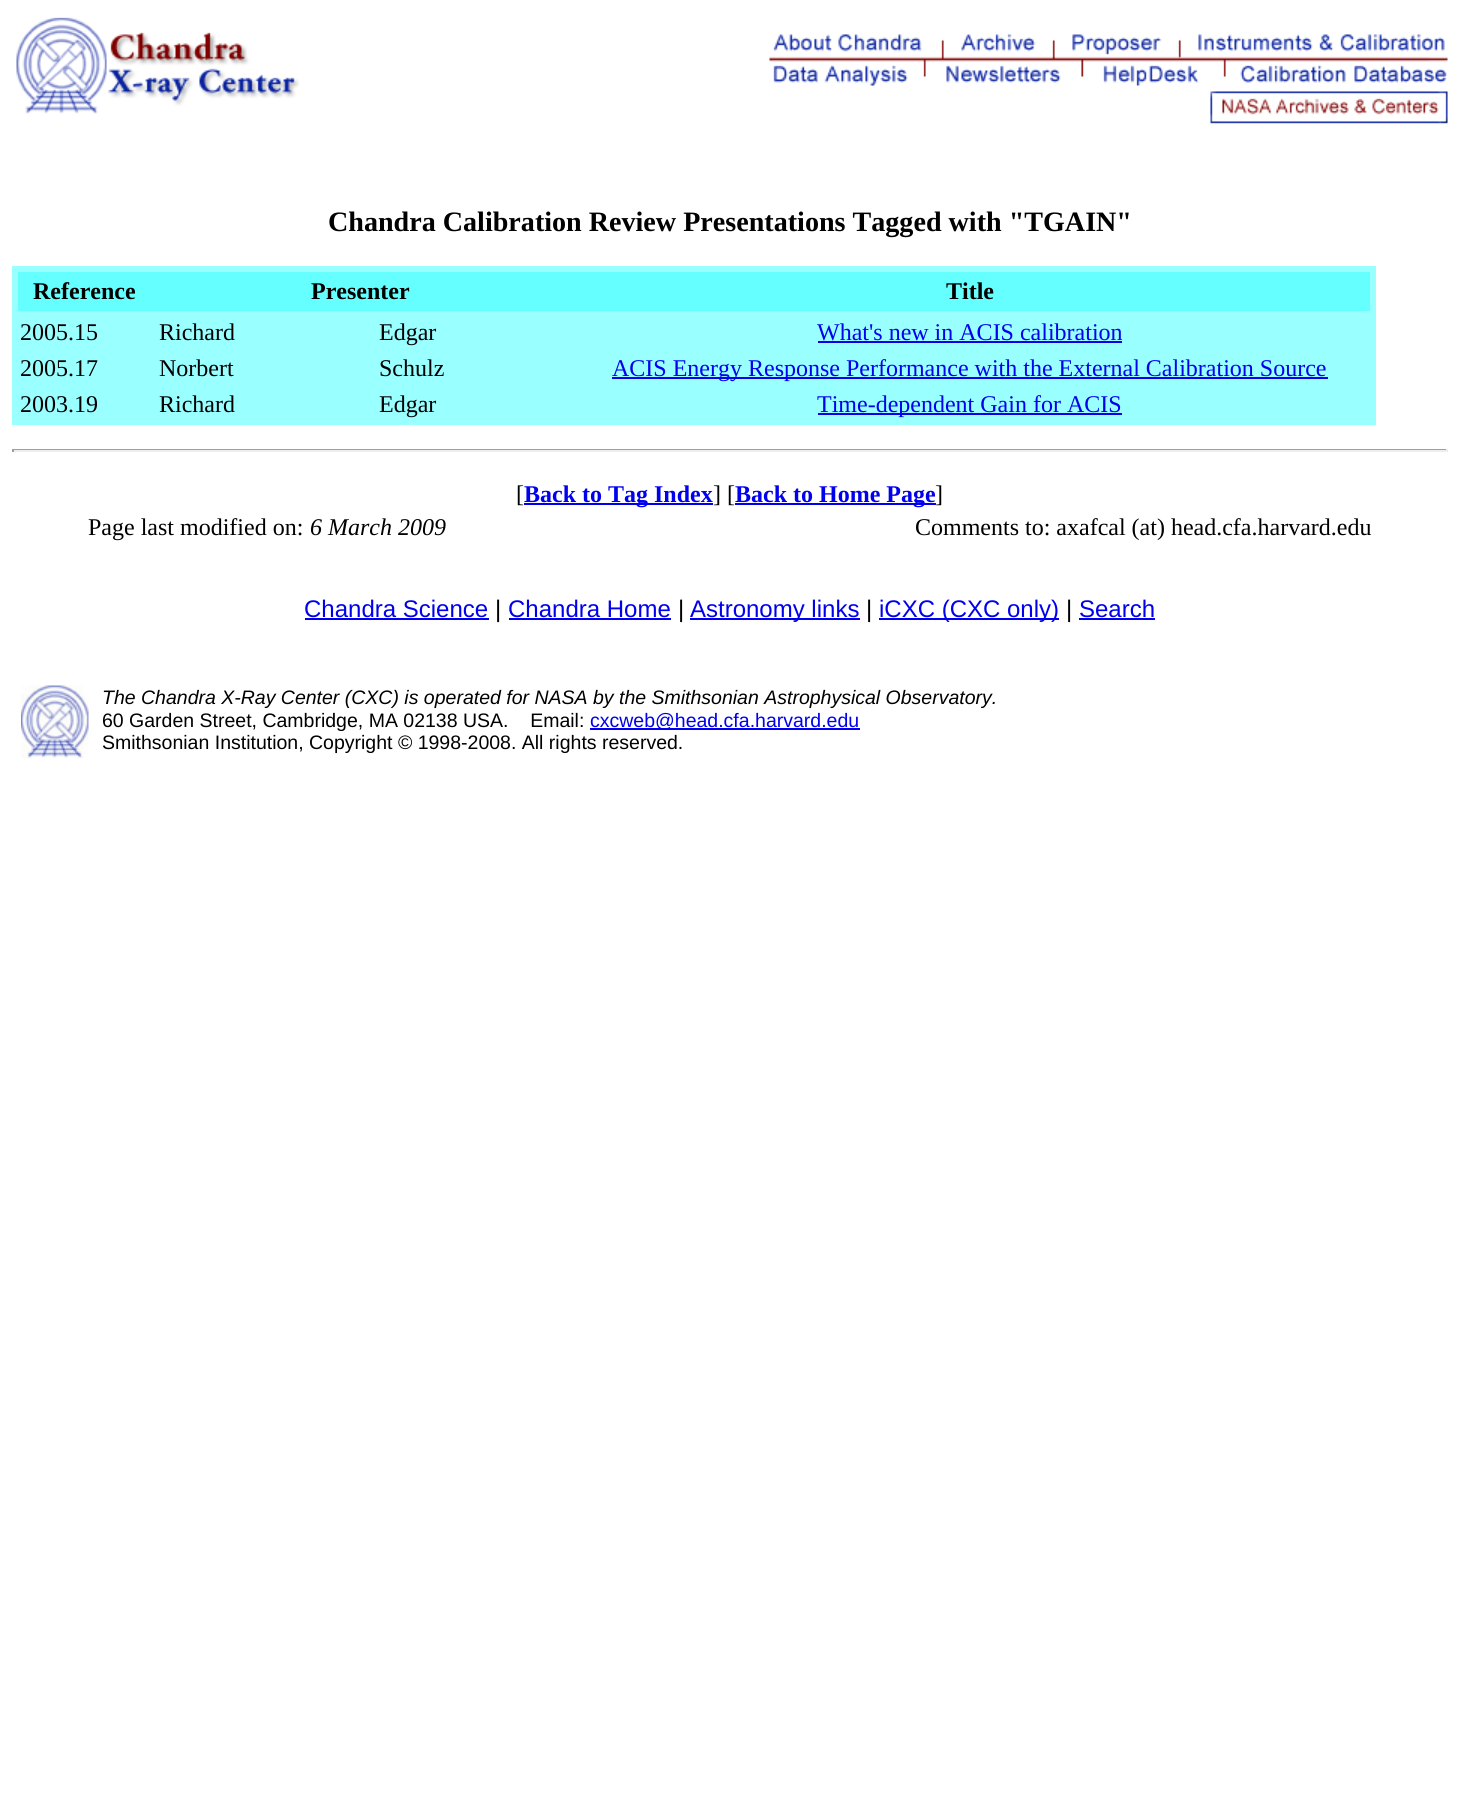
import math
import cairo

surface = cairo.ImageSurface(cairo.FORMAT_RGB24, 1459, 1808)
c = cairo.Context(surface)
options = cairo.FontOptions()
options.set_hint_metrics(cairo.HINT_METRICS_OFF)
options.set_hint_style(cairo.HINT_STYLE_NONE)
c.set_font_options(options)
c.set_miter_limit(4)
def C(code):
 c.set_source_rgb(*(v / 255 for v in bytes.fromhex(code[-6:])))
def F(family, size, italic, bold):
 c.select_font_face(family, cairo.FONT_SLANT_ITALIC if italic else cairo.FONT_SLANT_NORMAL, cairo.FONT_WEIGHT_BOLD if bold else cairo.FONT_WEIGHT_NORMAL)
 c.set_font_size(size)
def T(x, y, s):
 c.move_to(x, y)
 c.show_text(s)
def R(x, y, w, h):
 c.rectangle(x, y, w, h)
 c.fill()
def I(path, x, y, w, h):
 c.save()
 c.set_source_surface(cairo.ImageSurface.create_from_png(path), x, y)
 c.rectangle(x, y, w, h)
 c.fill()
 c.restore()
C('ffffff')
c.paint()
I('1.png',16,17,284,97)
I('2.png',768,34,680,90)
F('Liberation Serif',28.1,0,1)
C('000000')
T(328,231,'Chandra Calibration Review Presentations Tagged with "TGAIN"')
C('99ffff')
R(12,266,1364,159)
C('66ffff')
R(18,272,1352,39)
F('Liberation Serif',24,0,1)
C('000000')
T(33,299,'Reference')
T(311,299,'Presenter')
T(946,299,'Title')
F('Liberation Serif',24,0,0)
T(20,340,'2005.15')
T(159,340,'Richard')
T(379,340,'Edgar')
C('0000ee')
T(817,340,'What\'s new in ACIS calibration')
R(818,341,304,2)
C('000000')
T(20,376,'2005.17')
T(159,376,'Norbert')
T(379,376,'Schulz')
C('0000ee')
R(612,377,716,2)
T(612,376,'ACIS Energy Response Performance with the External Calibration Source')
C('000000')
T(20,412,'2003.19')
T(159,412,'Richard')
T(379,412,'Edgar')
C('0000ee')
R(818,413,304,2)
T(817,412,'Time-dependent Gain for ACIS')
C('9f9f9f')
R(12,449,1436,1)
C('eeeeee')
R(1446,449,2,3)
R(12,450,1436,2)
C('9f9f9f')
R(12,449,2,3)
C('000000')
T(516,502,'[')
C('0000ee')
R(524,503,189,2)
F('Liberation Serif',24,0,1)
T(524,502,'Back to Tag Index')
F('Liberation Serif',24,0,0)
C('000000')
T(713,502,'] [')
C('0000ee')
R(735,503,201,2)
F('Liberation Serif',24,0,1)
T(735,502,'Back to Home Page')
F('Liberation Serif',24,0,0)
C('000000')
T(935,502,']')
T(88,535,'Page last modified on:')
F('Liberation Serif',24,1,0)
T(310,535,'6 March 2009')
F('Liberation Serif',24,0,0)
T(915,535,'Comments to: axafcal (at) head.cfa.harvard.edu')
F('Liberation Sans',24,0,0)
C('0000ee')
T(304,617,'Chandra Science')
R(305,618,184,2)
C('000000')
T(495,617,'|')
C('0000ee')
T(508,617,'Chandra Home')
R(509,618,162,2)
C('000000')
T(678,617,'|')
C('0000ee')
R(690,618,170,2)
T(690,617,'Astronomy links')
C('000000')
T(866,617,'|')
C('0000ee')
R(879,618,180,2)
T(879,617,'iCXC (CXC only)')
C('000000')
T(1066,617,'|')
C('0000ee')
T(1079,617,'Search')
R(1079,618,76,2)
I('3.png',21,685,68,73)
F('Liberation Sans',19.5,1,0)
C('000000')
T(102,704,'The Chandra X-Ray Center (CXC) is operated for NASA by the Smithsonian Astrophysical Observatory.')
F('Liberation Sans',19.5,0,0)
T(102,727,'60 Garden Street, Cambridge, MA 02138 USA.    Email:')
C('0000ee')
R(590,728,270,2)
T(590,727,'cxcweb@head.cfa.harvard.edu')
C('000000')
T(102,749,'Smithsonian Institution, Copyright © 1998-2008. All rights reserved.')
surface.write_to_png('o.png')
